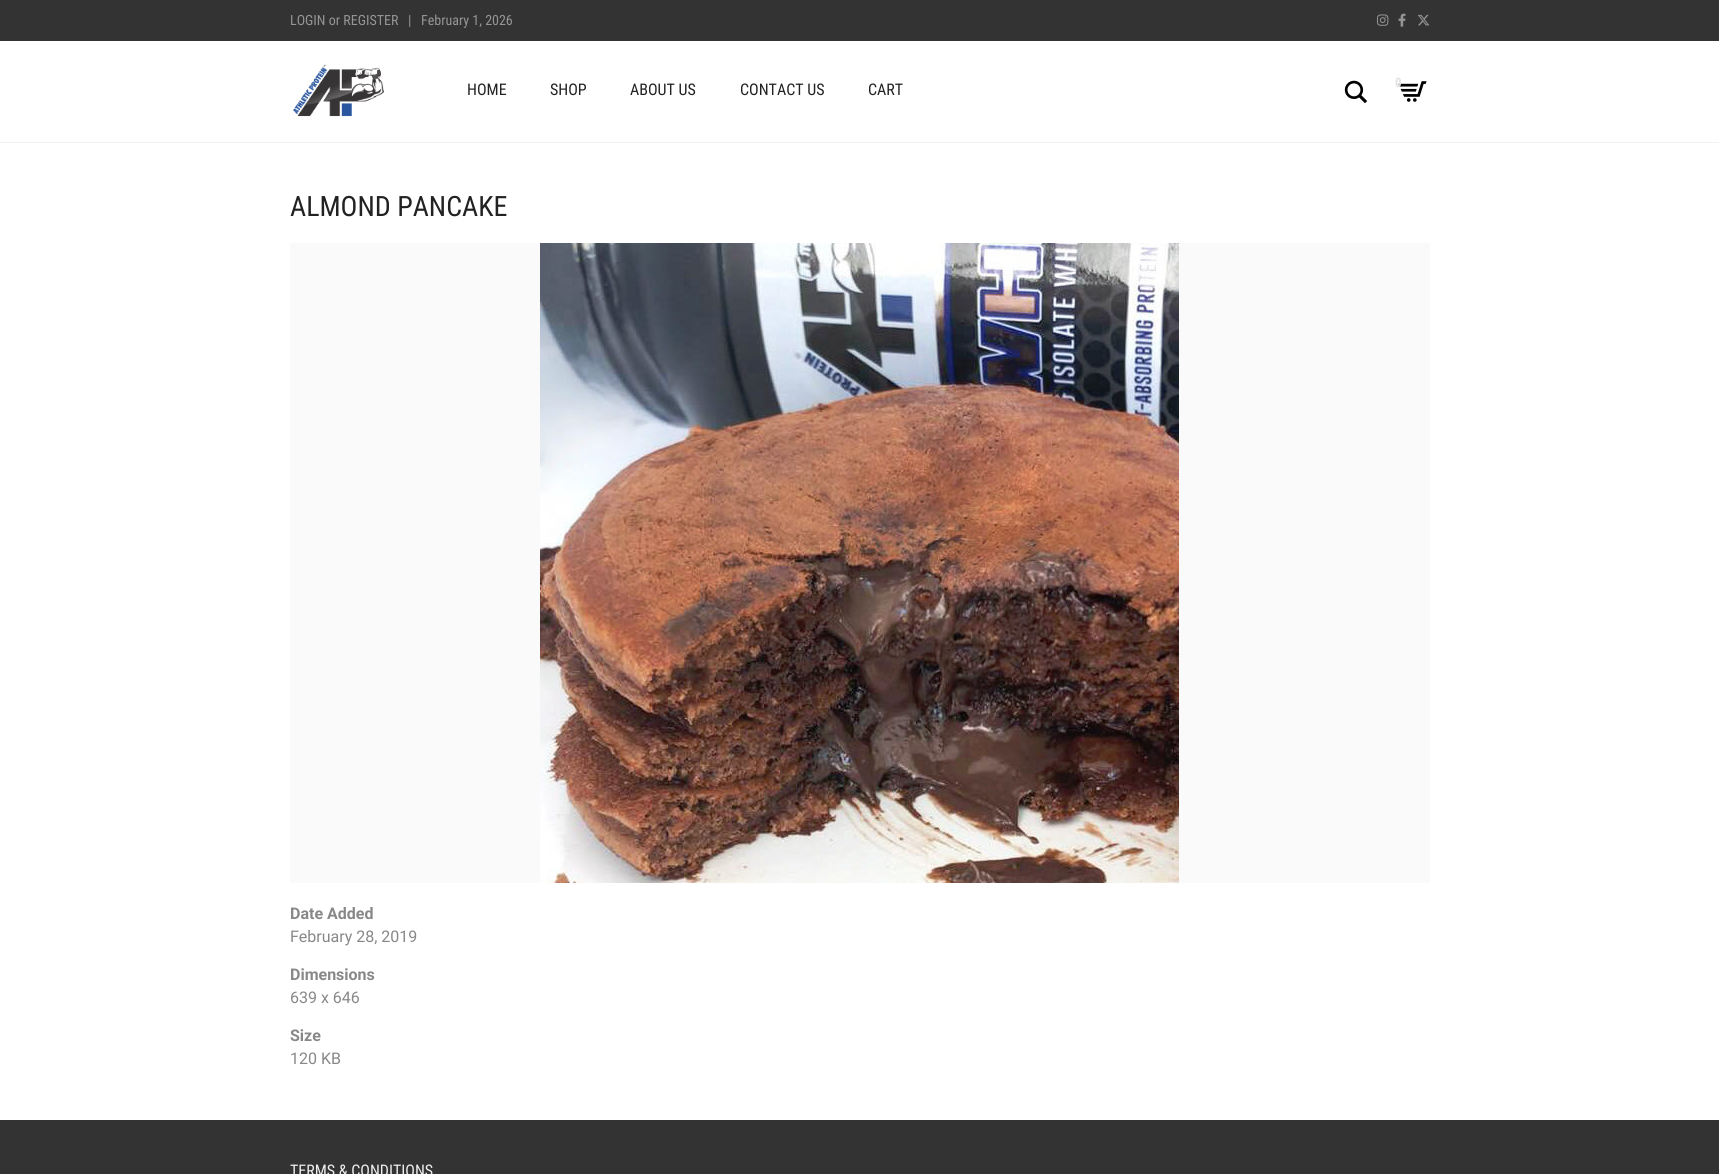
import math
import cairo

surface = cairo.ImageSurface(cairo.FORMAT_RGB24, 1719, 1174)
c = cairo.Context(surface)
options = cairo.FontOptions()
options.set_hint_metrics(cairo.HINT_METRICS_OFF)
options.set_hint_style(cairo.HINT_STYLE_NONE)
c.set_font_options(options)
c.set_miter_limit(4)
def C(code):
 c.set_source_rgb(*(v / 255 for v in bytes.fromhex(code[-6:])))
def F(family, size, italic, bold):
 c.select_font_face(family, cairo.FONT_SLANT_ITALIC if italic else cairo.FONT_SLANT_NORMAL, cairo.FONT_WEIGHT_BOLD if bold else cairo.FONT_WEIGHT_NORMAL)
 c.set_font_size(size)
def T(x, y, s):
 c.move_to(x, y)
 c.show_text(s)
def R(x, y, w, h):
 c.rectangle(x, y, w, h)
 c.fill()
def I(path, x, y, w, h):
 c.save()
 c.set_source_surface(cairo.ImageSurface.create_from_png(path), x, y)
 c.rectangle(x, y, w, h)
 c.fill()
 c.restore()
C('ffffff')
c.paint()
C('f2f2f2')
R(0,142,1719,1)
C('333333')
R(0,0,1719,41)
F('Roboto Condensed',14,0,0)
C('959595')
T(290,25,'LOGIN or REGISTER')
T(408,25,'|')
T(421,25,'February 1, 2026')
I('1.png',1377,14,12,12)
I('2.png',1398,13,8,14)
I('3.png',1418,14,12,12)
I('4.png',293,64,91,53)
F('Roboto Condensed',16,0,0)
C('222222')
T(467,95,'HOME')
T(550,95,'SHOP')
T(630,95,'ABOUT US')
T(740,95,'CONTACT US')
T(868,95,'CART')
I('5.png',1344,80,24,24)
I('6.png',1398,81,29,21)
F('Roboto Condensed',13,0,1)
C('e2e2e2')
T(1395,87,'0')
F('Roboto Condensed',28,0,0)
C('222222')
T(290,216,'ALMOND PANCAKE')
C('fafafa')
R(290,243,1140,640)
I('7.png',540,243,639,640)
F('Roboto',16,0,1)
C('888888')
T(290,919,'Date Added')
F('Roboto',16,0,0)
T(290,942,'February 28, 2019')
F('Roboto',16,0,1)
T(290,980,'Dimensions')
F('Roboto',16,0,0)
T(290,1003,'639 x 646')
F('Roboto',16,0,1)
T(290,1041,'Size')
F('Roboto',16,0,0)
T(290,1064,'120 KB')
C('333333')
R(0,1120,1719,54)
F('Roboto Condensed',16,0,0)
C('eeeeee')
T(290,1176,'TERMS & CONDITIONS')
surface.write_to_png('o.png')
